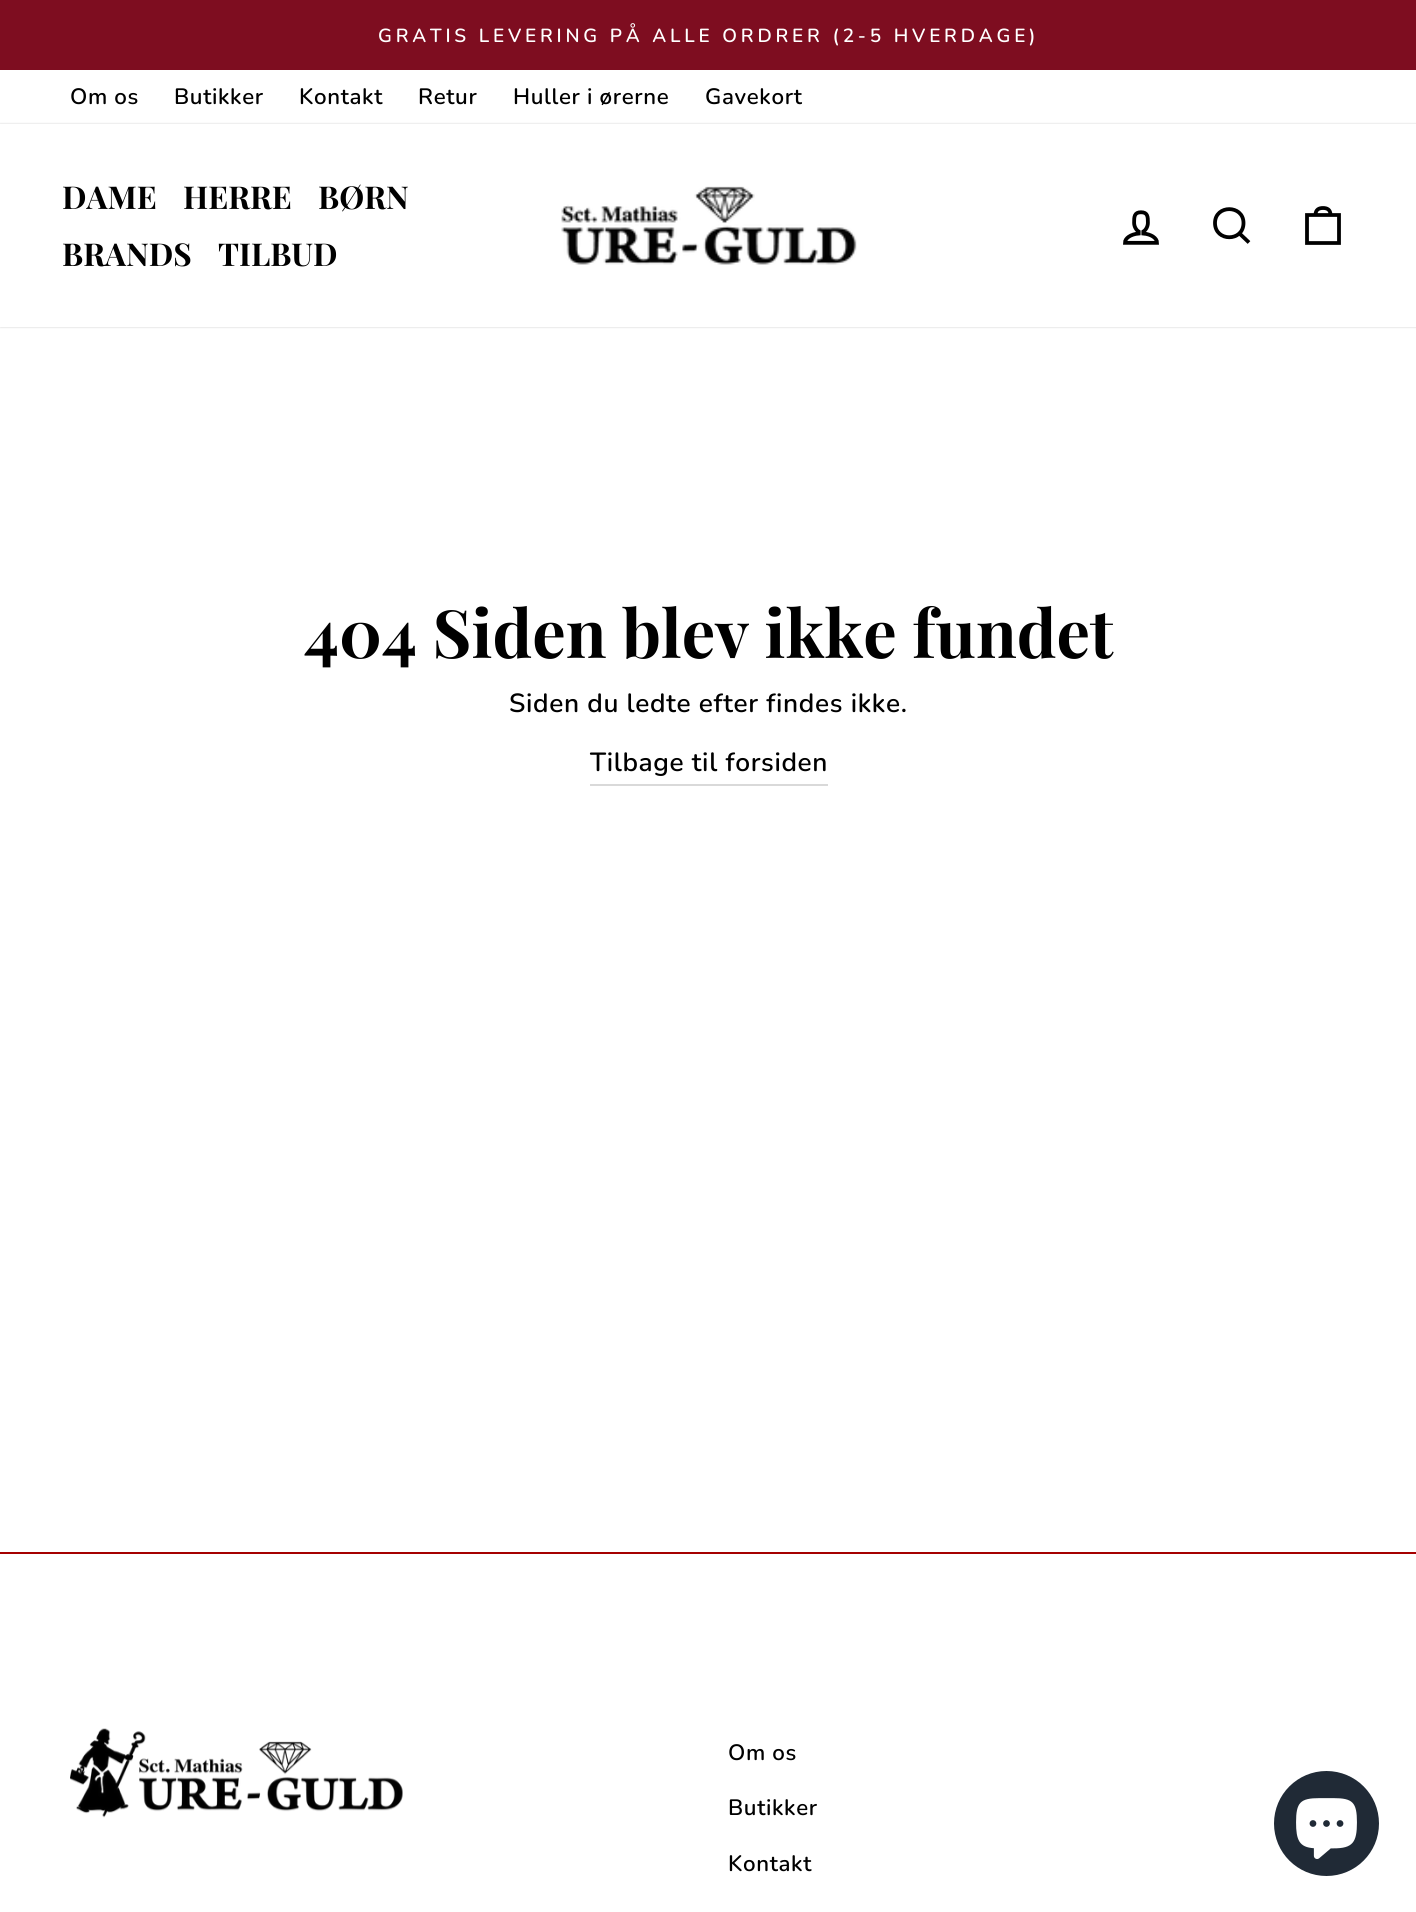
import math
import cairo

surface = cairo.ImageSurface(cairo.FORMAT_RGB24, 1416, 1912)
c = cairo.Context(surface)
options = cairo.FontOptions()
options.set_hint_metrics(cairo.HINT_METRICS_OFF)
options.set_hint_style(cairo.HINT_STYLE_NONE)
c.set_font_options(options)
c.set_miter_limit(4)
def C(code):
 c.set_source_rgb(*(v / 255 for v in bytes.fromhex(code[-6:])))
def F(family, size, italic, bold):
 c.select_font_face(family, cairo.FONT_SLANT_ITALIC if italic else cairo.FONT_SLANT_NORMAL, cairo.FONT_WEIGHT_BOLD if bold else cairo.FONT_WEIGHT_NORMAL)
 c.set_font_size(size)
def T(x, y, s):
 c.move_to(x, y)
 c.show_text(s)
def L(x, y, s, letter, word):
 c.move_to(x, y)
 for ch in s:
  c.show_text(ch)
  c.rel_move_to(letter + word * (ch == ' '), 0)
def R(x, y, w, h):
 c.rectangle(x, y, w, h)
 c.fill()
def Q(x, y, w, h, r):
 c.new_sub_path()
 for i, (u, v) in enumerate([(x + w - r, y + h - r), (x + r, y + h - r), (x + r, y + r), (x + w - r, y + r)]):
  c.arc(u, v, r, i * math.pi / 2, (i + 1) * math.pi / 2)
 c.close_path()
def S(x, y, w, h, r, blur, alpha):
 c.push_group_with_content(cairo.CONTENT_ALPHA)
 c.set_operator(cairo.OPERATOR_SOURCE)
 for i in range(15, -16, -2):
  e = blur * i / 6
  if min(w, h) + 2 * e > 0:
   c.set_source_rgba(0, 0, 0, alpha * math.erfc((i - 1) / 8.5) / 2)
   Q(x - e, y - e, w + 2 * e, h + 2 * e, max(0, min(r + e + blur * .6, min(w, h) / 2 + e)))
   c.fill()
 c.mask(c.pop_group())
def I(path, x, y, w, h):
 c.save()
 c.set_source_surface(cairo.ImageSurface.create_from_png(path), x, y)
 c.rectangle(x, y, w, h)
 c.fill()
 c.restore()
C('ffffff')
c.paint()
C('7e0d20')
R(0,0,1416,70)
F('Nunito SemiBold',18.95,0,0)
C('ffffff')
L(378,42,'GRATIS LEVERING PÅ ALLE ORDRER (2-5 HVERDAGE)',3.8,0)
F('Nunito SemiBold',22.25,0,0)
C('000000')
L(70,104,'Om os',.65,0)
L(174,104,'Butikker',.65,0)
L(299,104,'Kontakt',.65,0)
L(418,104,'Retur',.65,0)
L(513,104,'Huller i ørerne',.65,0)
L(705,104,'Gavekort',.65,0)
C('000000')
S(0,124,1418,203,0,1,.2)
C('ffffff')
R(0,124,1416,203)
F('Playfair Display',31.5,0,1)
C('000000')
T(62,209,'DAME')
T(183,209,'HERRE')
T(318,209,'BØRN')
T(62,266,'BRANDS')
T(218,266,'TILBUD')
I('1.png',561,186,296,79)
I('2.png',1123,210,36,35)
c.new_path()
c.move_to(1243.5,223)
c.curve_to(1243.5,242,1215,242,1215,223)
c.curve_to(1215,204.5,1243.5,204.5,1243.5,223)
c.close_path()
c.move_to(1249,242.5)
c.line_to(1239.5,233.5)
c.set_line_width(3.8)
c.stroke()
c.new_path()
c.move_to(1307,215)
c.line_to(1339,215)
c.line_to(1339,243)
c.line_to(1307,243)
c.close_path()
c.move_to(1315.5,215)
c.curve_to(1315.5,209.5,1319,208,1323,208)
c.curve_to(1327,208,1330.5,209.5,1330.5,215)
c.stroke()
F('Playfair Display',66.5,0,1)
T(304,658,'404 Siden blev ikke fundet')
F('Nunito SemiBold',26.25,0,0)
L(509,712,'Siden du ledte efter findes ikke.',.65,0)
C('d9d9d9')
R(590,784,238,2)
C('000000')
L(590,771,'Tilbage til forsiden',.65,0)
C('a50000')
R(0,1552,1416,2)
I('3.png',70,1728,333,90)
F('Nunito SemiBold',22.25,0,0)
C('000000')
L(728,1760,'Om os',.65,0)
L(728,1815,'Butikker',.65,0)
L(728,1871,'Kontakt',.65,0)
C('202a36')
c.new_path()
c.arc(1326.5,1823.5,52.5,0,2 * math.pi)
c.fill()
I('4.png',1296,1798,61,61)
surface.write_to_png('o.png')
